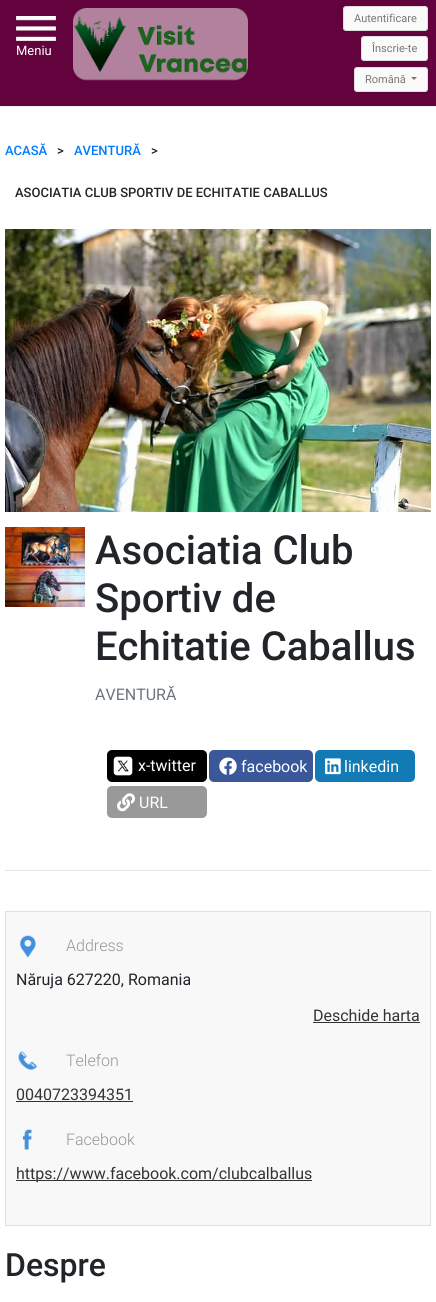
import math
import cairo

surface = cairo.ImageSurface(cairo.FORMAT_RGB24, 436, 1302)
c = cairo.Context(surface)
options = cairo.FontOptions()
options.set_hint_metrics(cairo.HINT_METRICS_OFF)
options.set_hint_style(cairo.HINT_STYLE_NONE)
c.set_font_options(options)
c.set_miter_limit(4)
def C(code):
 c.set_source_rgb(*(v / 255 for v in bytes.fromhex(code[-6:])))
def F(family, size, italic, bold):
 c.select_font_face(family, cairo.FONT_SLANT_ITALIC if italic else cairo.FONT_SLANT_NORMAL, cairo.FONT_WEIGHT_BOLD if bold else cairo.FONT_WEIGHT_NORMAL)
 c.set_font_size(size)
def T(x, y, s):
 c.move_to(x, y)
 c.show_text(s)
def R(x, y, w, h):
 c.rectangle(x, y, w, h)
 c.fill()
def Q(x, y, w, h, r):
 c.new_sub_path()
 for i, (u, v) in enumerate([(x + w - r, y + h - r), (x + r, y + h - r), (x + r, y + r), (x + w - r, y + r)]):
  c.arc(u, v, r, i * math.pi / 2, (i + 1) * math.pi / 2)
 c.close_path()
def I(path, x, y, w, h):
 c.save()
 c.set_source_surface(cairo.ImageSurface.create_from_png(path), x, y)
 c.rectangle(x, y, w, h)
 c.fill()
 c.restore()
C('ffffff')
c.paint()
C('62033d')
R(0,0,436,106)
I('1.png',16,16,40,25)
F('Roboto',13,0,0)
C('ffffff')
T(16,55,'Meniu')
I('2.png',73,8,175,73)
C('fafafa')
Q(343.5,6.5,84,24,2.5)
c.fill_preserve()
C('dddddd')
c.set_line_width(1)
c.stroke()
F('Roboto',11,0,0)
C('777777')
T(354,22,'Autentificare')
C('fafafa')
Q(361.5,36.5,66,24,2.5)
c.fill_preserve()
C('dddddd')
c.stroke()
C('777777')
T(372,52,'Înscrie-te')
C('fafafa')
Q(354.5,67.5,73,24,2.5)
c.fill_preserve()
C('dddddd')
c.stroke()
C('777777')
T(365,83,'Română')
c.new_path()
c.move_to(411,77)
c.line_to(417,77)
c.line_to(414,80)
c.close_path()
c.fill()
C('eeeeee')
R(0,106,436,1)
F('Roboto Medium',13,0,0)
C('007bff')
T(5,155,'ACASĂ')
C('212529')
T(57,155,'>')
C('007bff')
T(74,155,'AVENTURĂ')
C('212529')
T(151,155,'>')
T(15,197,'ASOCIATIA CLUB SPORTIV DE ECHITATIE CABALLUS')
I('3.png',5,229,426,283)
I('4.png',5,527,80,80)
F('Roboto Medium',40,0,0)
T(95,564,'Asociatia Club')
T(95,612,'Sportiv de')
T(95,660,'Echitatie Caballus')
F('Roboto',16,0,0)
C('6c757d')
T(95,700,'AVENTURĂ')
C('000000')
Q(107,750,100,32,5)
c.fill()
I('5.png',113,756,20,20)
C('ffffff')
T(138,771,'x-twitter')
C('3a579a')
Q(209,750,104,32,5)
c.fill()
I('6.png',219,757,18,18)
C('ffffff')
T(241,772,'facebook')
C('127bb6')
Q(315,750,100,32,5)
c.fill()
I('7.png',325,758,16,17)
C('ffffff')
T(344,772,'linkedin')
C('999999')
Q(107,786,100,32,5)
c.fill()
I('8.png',117,793,18,19)
C('ffffff')
T(139,808,'URL')
C('e6e6e6')
R(5,870,426,1)
C('f8f8f8')
c.rectangle(5.5,911.5,425,314)
c.fill_preserve()
C('e0e0e0')
c.stroke()
I('9.png',20,935,16,23)
F('Roboto Light',16,0,0)
C('969696')
T(66,951,'Address')
F('Roboto',16,0,0)
C('212529')
T(16,985,'Năruja 627220, Romania')
C('333333')
T(313,1021,'Deschide harta')
R(313,1022,107,1)
I('10.png',18,1051,19,19)
F('Roboto Light',16,0,0)
C('969696')
T(66,1066,'Telefon')
F('Roboto',16,0,0)
C('333333')
T(16,1100,'0040723394351')
R(16,1101,117,1)
I('11.png',22,1129,10,21)
F('Roboto Light',16,0,0)
C('969696')
T(66,1145,'Facebook')
C('333333')
R(16,1180,296,1)
F('Roboto',16,0,0)
T(16,1179,'https://www.facebook.com/clubcalballus')
F('Roboto Medium',32,0,0)
C('212529')
T(5,1276,'Despre')
surface.write_to_png('o.png')
